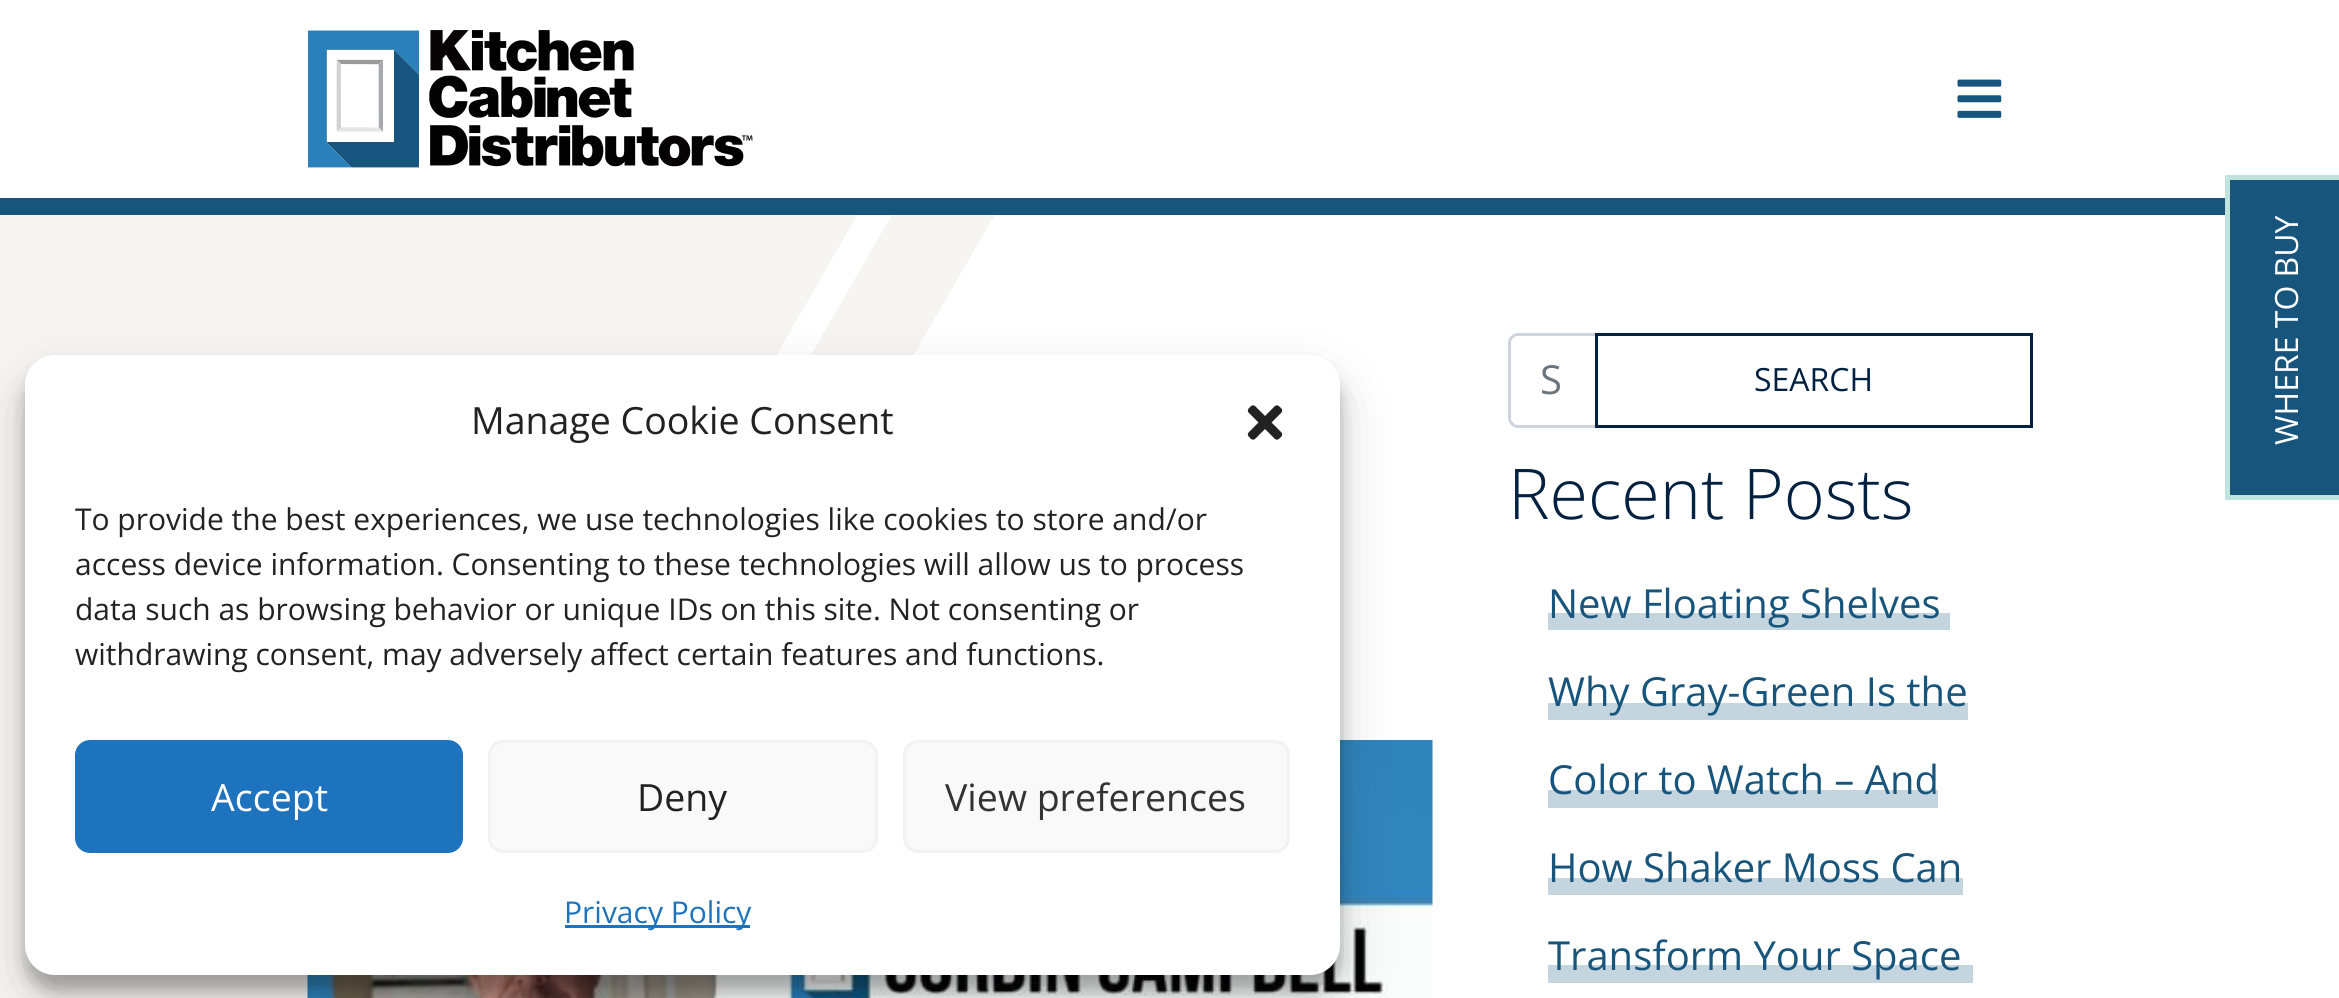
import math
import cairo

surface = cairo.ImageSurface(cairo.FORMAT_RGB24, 2339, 998)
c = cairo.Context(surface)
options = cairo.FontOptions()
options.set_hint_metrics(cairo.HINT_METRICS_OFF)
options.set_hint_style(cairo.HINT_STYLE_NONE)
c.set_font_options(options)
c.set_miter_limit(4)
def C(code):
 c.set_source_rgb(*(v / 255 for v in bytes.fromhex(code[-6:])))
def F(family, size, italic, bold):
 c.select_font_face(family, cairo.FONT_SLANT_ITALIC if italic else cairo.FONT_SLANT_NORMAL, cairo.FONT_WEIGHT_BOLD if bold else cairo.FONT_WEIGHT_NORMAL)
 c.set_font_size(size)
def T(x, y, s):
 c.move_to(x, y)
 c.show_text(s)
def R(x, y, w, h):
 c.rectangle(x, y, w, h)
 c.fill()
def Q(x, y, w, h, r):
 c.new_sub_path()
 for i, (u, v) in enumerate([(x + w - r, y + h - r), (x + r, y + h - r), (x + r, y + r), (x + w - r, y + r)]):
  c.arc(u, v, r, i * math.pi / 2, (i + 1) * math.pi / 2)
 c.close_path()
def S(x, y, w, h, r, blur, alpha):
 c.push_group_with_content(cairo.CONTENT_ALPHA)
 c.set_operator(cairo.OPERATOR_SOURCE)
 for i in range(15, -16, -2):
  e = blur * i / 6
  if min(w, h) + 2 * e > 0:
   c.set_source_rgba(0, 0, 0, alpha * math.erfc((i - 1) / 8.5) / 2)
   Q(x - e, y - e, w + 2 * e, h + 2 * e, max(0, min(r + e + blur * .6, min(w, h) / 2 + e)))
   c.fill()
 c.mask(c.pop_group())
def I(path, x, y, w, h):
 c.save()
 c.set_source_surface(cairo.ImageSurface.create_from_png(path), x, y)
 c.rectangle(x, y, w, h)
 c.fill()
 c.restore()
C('ffffff')
c.paint()
C('17557d')
R(0,198,2225,17)
I('1.png',308,30,445,138)
I('2.png',1957,79,45,39)
R(2230,180,109,315)
C('bee4dd')
R(2225,175,114,5)
R(2225,495,114,5)
R(2225,175,5,325)
F('Open Sans',32,0,0)
C('ffffff')
c.save()
c.translate(2298,445)
c.rotate(-90 * math.pi / 180)
T(0,0,'WHERE TO BUY')
c.restore()
gradient = cairo.LinearGradient(-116,416,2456,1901)
gradient.add_color_stop_rgba(.29,0.965,0.961,0.953,1)
gradient.add_color_stop_rgba(.29,1,1,1,1)
c.set_source(gradient)
R(811,215,183,317)
gradient = cairo.LinearGradient(-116,416,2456,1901)
gradient.add_color_stop_rgba(.26,1,1,1,1)
gradient.add_color_stop_rgba(.26,1,1,1,0)
c.set_source(gradient)
R(811,215,80,139)
gradient = cairo.LinearGradient(-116,416,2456,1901)
gradient.add_color_stop_rgba(.25,0.965,0.961,0.953,1)
gradient.add_color_stop_rgba(.25,0.965,0.961,0.953,0)
c.set_source(gradient)
R(0,215,857,783)
I('4.png',307,740,1126,258)
C('000000')
S(25,370,1315,620,30,7.5,.23)
S(25,380,1315,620,30,25,.19)
C('ffffff')
Q(25,355,1315,620,30)
c.fill()
F('Open Sans',37.5,0,0)
C('222222')
T(471,434,'Manage Cookie Consent')
I('3.png',1247,405,36,35)
F('Open Sans',30,0,0)
T(75,530,'To provide the best experiences, we use technologies like cookies to store and/or')
T(75,575,'access device information. Consenting to these technologies will allow us to process')
T(75,620,'data such as browsing behavior or unique IDs on this site. Not consenting or')
T(75,665,'withdrawing consent, may adversely affect certain features and functions.')
C('1e73be')
Q(76.5,741.5,385,110,13.5)
c.fill_preserve()
c.set_line_width(3)
c.stroke()
F('Open Sans',37.5,0,0)
C('ffffff')
T(211,811,'Accept')
C('f9f9f9')
Q(489.5,741.5,387,110,13.5)
c.fill_preserve()
C('f2f2f2')
c.stroke()
C('222222')
T(637,811,'Deny')
C('f9f9f9')
Q(904.5,741.5,384,110,13.5)
c.fill_preserve()
C('f2f2f2')
c.stroke()
C('333333')
T(945,811,'View preferences')
C('1e73be')
R(565,925,185,3)
F('Open Sans',30,0,0)
T(564,923,'Privacy Policy')
c.new_path()
c.move_to(1518,334.5)
c.line_to(1596.5,334.5)
c.line_to(1596.5,426.5)
c.line_to(1518,426.5)
c.curve_to(1513.5,426.5,1509.5,422.5,1509.5,418)
c.line_to(1509.5,343)
c.curve_to(1509.5,338.5,1513.5,334.5,1518,334.5)
c.close_path()
C('ced4da')
c.stroke()
F('Open Sans',40,0,0)
C('6c757d')
T(1540,394,'S')
c.rectangle(1596.5,334.5,435,92)
C('022140')
c.stroke()
F('Open Sans',32,0,0)
T(1754,391,'SEARCH')
F('Open Sans Light',70,0,0)
T(1508,519,'Recent Posts')
C('c5d5df')
R(1548,613,402,17)
F('Open Sans',40,0,0)
C('17557d')
T(1548,618,'New Floating Shelves')
C('c5d5df')
R(1548,703,420,17)
C('17557d')
T(1548,706,'Why Gray-Green Is the')
C('c5d5df')
R(1548,790,390,18)
C('17557d')
T(1548,794,'Color to Watch – And')
C('c5d5df')
R(1548,878,415,17)
C('17557d')
T(1548,882,'How Shaker Moss Can')
C('c5d5df')
R(1548,965,425,18)
C('17557d')
T(1548,970,'Transform Your Space')
surface.write_to_png('o.png')
